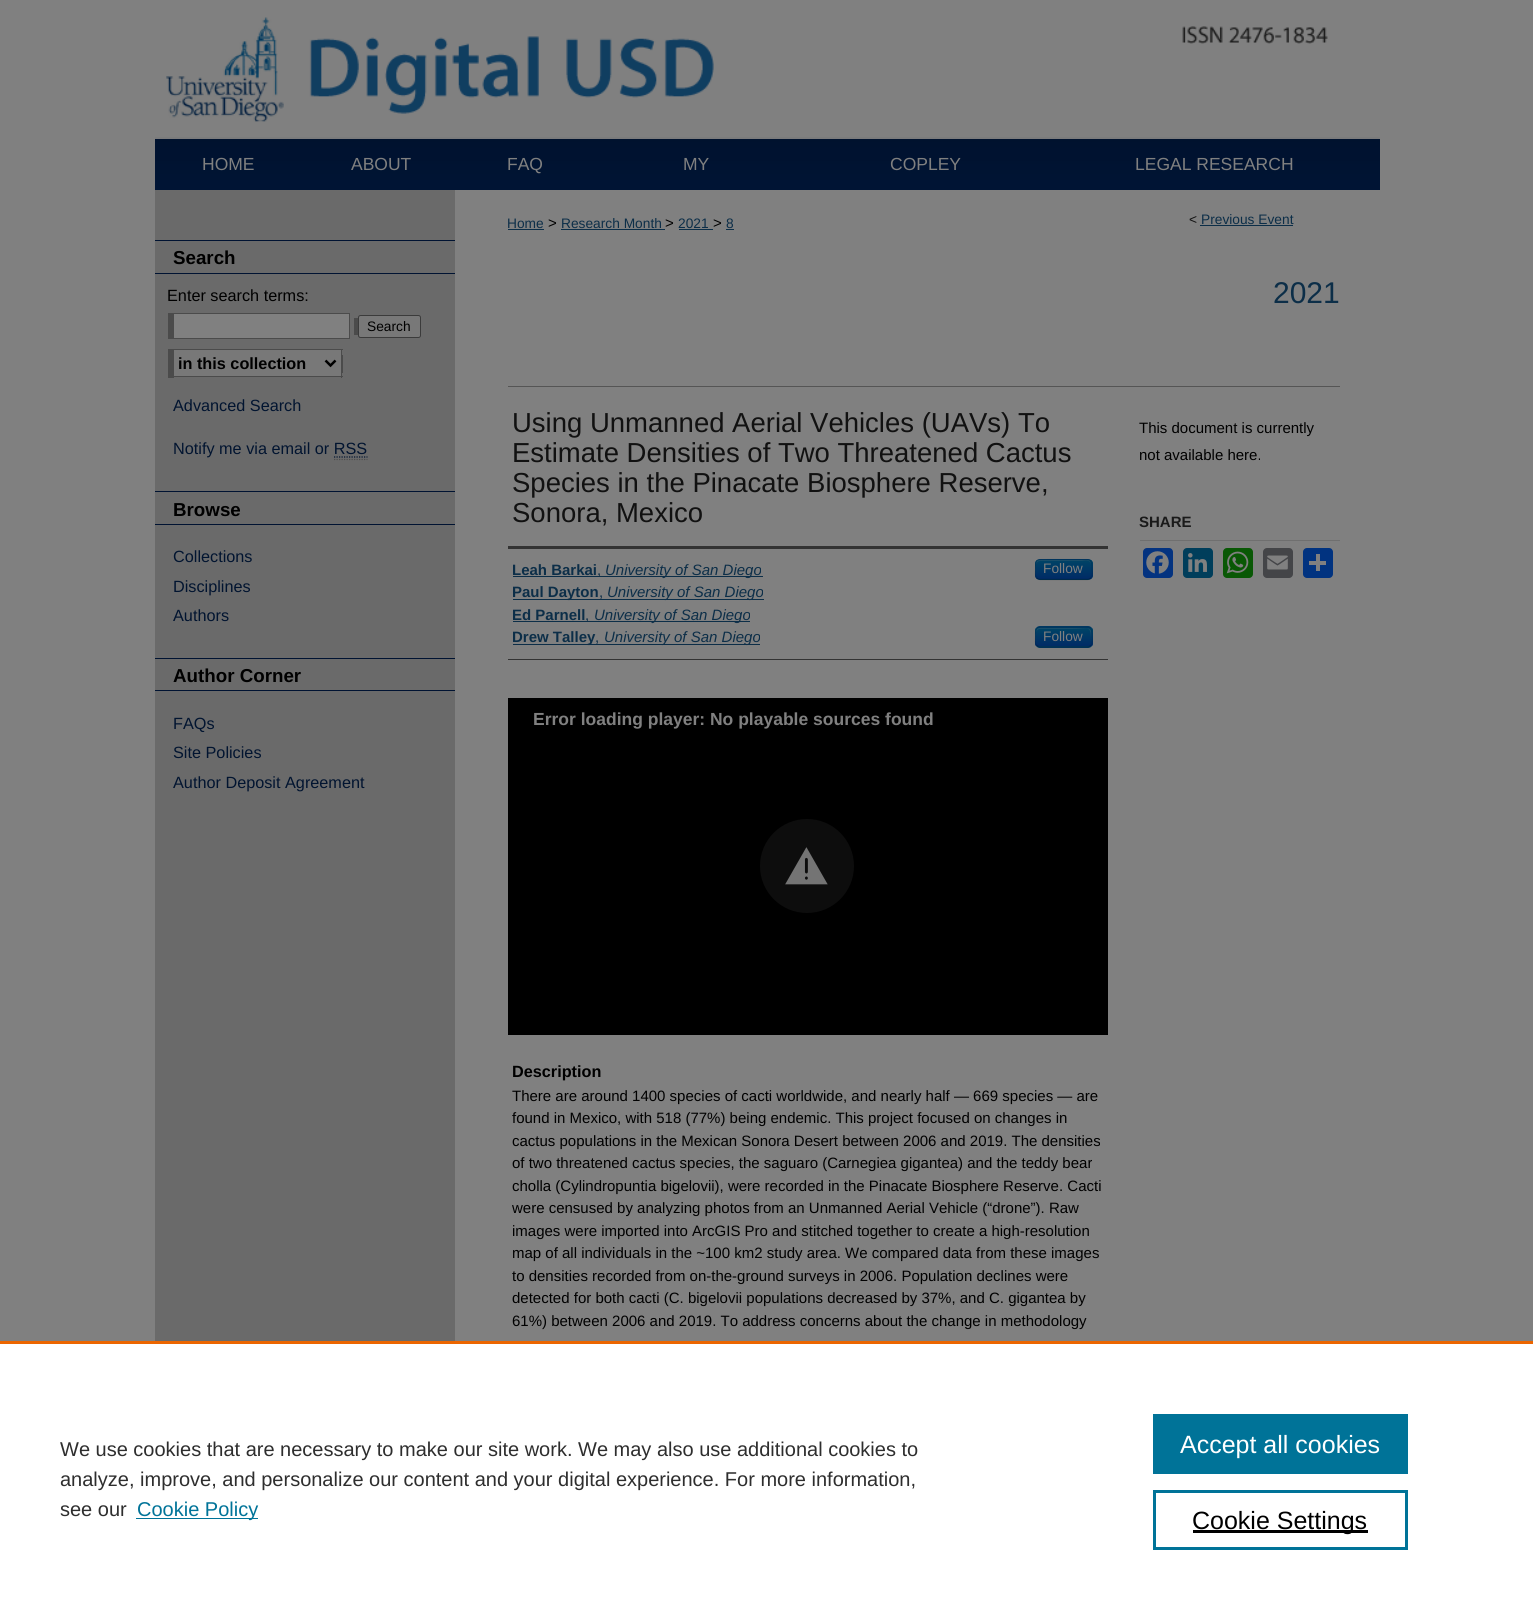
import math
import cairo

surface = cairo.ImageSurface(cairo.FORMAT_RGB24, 1533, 1616)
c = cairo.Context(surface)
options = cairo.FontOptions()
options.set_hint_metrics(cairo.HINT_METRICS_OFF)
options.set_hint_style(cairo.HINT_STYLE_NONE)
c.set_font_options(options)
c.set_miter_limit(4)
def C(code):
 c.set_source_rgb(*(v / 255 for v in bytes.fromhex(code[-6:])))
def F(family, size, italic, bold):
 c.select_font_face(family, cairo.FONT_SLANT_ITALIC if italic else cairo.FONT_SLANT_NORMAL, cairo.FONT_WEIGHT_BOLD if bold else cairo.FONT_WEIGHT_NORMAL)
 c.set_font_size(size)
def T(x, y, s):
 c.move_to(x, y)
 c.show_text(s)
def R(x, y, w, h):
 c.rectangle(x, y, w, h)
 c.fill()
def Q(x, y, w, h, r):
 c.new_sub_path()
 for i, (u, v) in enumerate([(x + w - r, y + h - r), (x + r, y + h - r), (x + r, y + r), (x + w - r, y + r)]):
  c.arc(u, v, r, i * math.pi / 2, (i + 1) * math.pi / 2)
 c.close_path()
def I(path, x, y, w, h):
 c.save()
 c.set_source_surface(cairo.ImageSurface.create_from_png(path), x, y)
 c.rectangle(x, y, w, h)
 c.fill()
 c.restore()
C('808080')
c.paint()
I('2.png',155,26,1225,113)
I('1.png',166,17,118,105)
I('3.png',155,139,1225,51)
F('Liberation Sans',17.5,0,0)
C('808080')
T(202,170,'HOME')
T(351,170,'ABOUT')
T(507,170,'FAQ')
T(683,170,'MY')
T(890,170,'COPLEY')
T(1135,170,'LEGAL RESEARCH')
C('6a6a6a')
R(155,190,300,1151)
C('001332')
R(155,240,300,1)
R(155,273,300,1)
F('Liberation Sans',18.75,0,1)
C('000000')
T(173,264,'Search')
F('Liberation Sans',16.25,0,0)
T(167,301,'Enter search terms:')
C('4b4b4b')
R(168,313,182,26)
R(354,318,4,17)
C('808080')
R(174,314,175,24)
C('787878')
Q(358.5,315.5,62,22,2)
c.fill_preserve()
C('3b3b3b')
c.set_line_width(1)
c.stroke()
F('Liberation Sans',13.75,0,0)
C('000000')
T(367,331,'Search')
C('4b4b4b')
R(342,355,1,18)
C('787878')
R(174,350,167,26)
C('4b4b4b')
R(168,349,175,1)
R(341,349,1,29)
R(168,376,175,1)
R(168,349,6,29)
c.new_path()
c.move_to(325.5,360.5)
c.line_to(330.5,365.5)
c.line_to(335.5,360.5)
C('000000')
c.set_line_width(2.5)
c.stroke()
F('Liberation Sans',16.25,0,1)
T(178,369,'in this collection')
F('Liberation Sans',16.25,0,0)
C('011430')
T(173,411,'Advanced Search')
T(173,454,'Notify me via email or RSS')
c.new_path()
c.move_to(334,457)
c.line_to(367.5,457)
c.set_line_width(1.2)
c.set_dash([1.25,1.25])
c.stroke()
c.new_path()
c.move_to(334,459.5)
c.line_to(367.5,459.5)
C('4d4d4d')
c.stroke()
C('001332')
R(155,491,300,1)
R(155,524,300,1)
F('Liberation Sans',18.75,0,1)
C('000000')
T(173,516,'Browse')
F('Liberation Sans',16.25,0,0)
C('011430')
T(173,562,'Collections')
T(173,592,'Disciplines')
T(173,621,'Authors')
C('001332')
R(155,658,300,1)
R(155,690,300,1)
F('Liberation Sans',18.75,0,1)
C('000000')
T(173,682,'Author Corner')
F('Liberation Sans',16.25,0,0)
C('011430')
T(173,729,'FAQs')
T(173,758,'Site Policies')
T(173,788,'Author Deposit Agreement')
F('Liberation Sans',13.75,0,0)
C('0c2e48')
T(507,228,'Home')
R(508,229,36,1)
F('Liberation Sans',15,0,0)
C('000000')
T(548,228,'>')
F('Liberation Sans',13.75,0,0)
C('0c2e48')
T(561,228,'Research Month')
R(561,229,104,1)
F('Liberation Sans',15,0,0)
C('000000')
T(665,228,'>')
F('Liberation Sans',13.75,0,0)
C('0c2e48')
T(678,228,'2021')
R(679,229,34,1)
F('Liberation Sans',15,0,0)
C('000000')
T(713,228,'>')
F('Liberation Sans',13.75,0,0)
C('0c2e48')
T(726,228,'8')
R(726,229,8,1)
C('111111')
T(1189,224,'<')
C('0c2e48')
T(1201,224,'Previous Event')
R(1200,225,93,1)
F('Liberation Sans',30,0,0)
T(1273,303,'2021')
C('555555')
R(508,386,832,1)
F('Liberation Sans',27.5,0,0)
C('111111')
T(512,432,'Using Unmanned Aerial Vehicles (UAVs) To')
T(512,462,'Estimate Densities of Two Threatened Cactus')
T(512,492,'Species in the Pinacate Biosphere Reserve,')
T(512,522,'Sonora, Mexico')
C('333333')
R(508,546,600,3)
R(508,659,600,1)
F('Liberation Sans',15,0,1)
C('0c2e48')
T(512,575,'Leah Barkai')
R(513,576,250,1)
F('Liberation Sans',15,0,0)
T(597,575,',')
F('Liberation Sans',15,1,0)
T(605,575,'University of San Diego')
C('003a66')
Q(1035,559,58,21,5)
c.fill()
c.save()
Q(1035,559,58,21,5)
c.clip()
gradient = cairo.LinearGradient(1064,560,1064,579)
gradient.add_color_stop_rgba(0,0,0.267,0.4,1)
gradient.add_color_stop_rgba(1,0,0.169,0.4,1)
c.set_source(gradient)
R(1035,560,58,19)
c.restore()
c.set_source_rgba(0.502,0.502,0.502,0.2)
c.new_path()
c.move_to(1040,561)
c.line_to(1082,561)
c.curve_to(1088,560,1091,560,1091,567)
c.line_to(1091,576)
c.line_to(1091,568)
c.curve_to(1091,558,1089,560,1079,560)
c.line_to(1048,560)
c.curve_to(1038,560,1036,558,1036,568)
c.line_to(1036,577)
c.curve_to(1036,573,1034,561,1040,561)
c.close_path()
c.fill()
c.new_path()
c.move_to(1090.5,578)
c.curve_to(1090,579,1088.5,579.5,1087.5,579.5)
c.line_to(1040,579.5)
c.curve_to(1039,579.5,1037.5,579,1037,578)
c.set_source_rgba(0,0,0,0.25)
c.set_dash([])
c.stroke()
c.new_path()
c.move_to(1037,578)
c.curve_to(1034.5,576,1035.5,572,1035.5,569.5)
c.curve_to(1035.5,558.5,1036.5,559.5,1048,559.5)
c.line_to(1079.5,559.5)
c.curve_to(1091,559.5,1092,558.5,1092,569.5)
c.curve_to(1092,572,1093,576,1090.5,578)
c.set_source_rgba(0,0,0,0.1)
c.stroke()
F('Liberation Sans',13.75,0,0)
C('808080')
T(1043,573,'Follow')
C('0c2e48')
R(513,599,251,1)
F('Liberation Sans',15,0,1)
T(512,597,'Paul Dayton')
F('Liberation Sans',15,0,0)
T(599,597,',')
F('Liberation Sans',15,1,0)
T(607,597,'University of San Diego')
F('Liberation Sans',15,0,1)
T(512,620,'Ed Parnell')
R(513,621,237,1)
F('Liberation Sans',15,0,0)
T(585,620,',')
F('Liberation Sans',15,1,0)
T(594,620,'University of San Diego')
R(513,644,82,1)
F('Liberation Sans',15,0,1)
T(512,642,'Drew Talley')
F('Liberation Sans',15,0,0)
T(595,642,',')
R(595,644,165,1)
F('Liberation Sans',15,1,0)
T(604,642,'University of San Diego')
C('003a66')
Q(1035,626,58,22,5)
c.fill()
c.save()
Q(1035,626,58,22,5)
c.clip()
gradient = cairo.LinearGradient(1064,628,1064,646)
gradient.add_color_stop_rgba(0,0,0.267,0.4,1)
gradient.add_color_stop_rgba(1,0,0.169,0.4,1)
c.set_source(gradient)
R(1035,628,58,18)
c.restore()
c.set_source_rgba(0.502,0.502,0.502,0.2)
c.new_path()
c.move_to(1040,629)
c.line_to(1072,629)
c.curve_to(1089,629,1091,624,1091,642)
c.curve_to(1091,629,1094,628,1079,628)
c.line_to(1048,628)
c.curve_to(1039,628,1036,626,1036,635)
c.line_to(1036,643)
c.curve_to(1036,640,1034,629,1040,629)
c.close_path()
c.fill()
c.new_path()
c.move_to(1090.5,645.5)
c.curve_to(1090,646.5,1088.5,647,1087.5,647)
c.line_to(1040,647)
c.curve_to(1039,647,1037.5,646.5,1037,645.5)
c.set_source_rgba(0,0,0,0.25)
c.stroke()
c.new_path()
c.move_to(1037,645.5)
c.curve_to(1034.5,643.5,1035.5,639.5,1035.5,637)
c.curve_to(1035.5,626,1036.5,627,1048,627)
c.line_to(1079.5,627)
c.curve_to(1091,627,1092,626,1092,637)
c.curve_to(1092,639.5,1093,643.5,1090.5,645.5)
c.set_source_rgba(0,0,0,0.1)
c.stroke()
F('Liberation Sans',13.75,0,0)
C('808080')
T(1043,641,'Follow')
C('000000')
R(508,698,600,337)
F('Liberation Sans',17.5,0,1)
C('808080')
T(533,725,'Error loading player: No playable sources found')
C('0d0d0d')
c.new_path()
c.arc(807,866,47,0,2 * math.pi)
c.fill()
I('4.png',785,847,43,38)
F('Liberation Sans',16.25,0,1)
C('000000')
T(512,1077,'Description')
F('Liberation Sans',15,0,0)
T(512,1101,'There are around 1400 species of cacti worldwide, and nearly half — 669 species — are')
T(512,1123,'found in Mexico, with 518 (77%) being endemic. This project focused on changes in')
T(512,1146,'cactus populations in the Mexican Sonora Desert between 2006 and 2019. The densities')
T(512,1168,'of two threatened cactus species, the saguaro (Carnegiea gigantea) and the teddy bear')
T(512,1191,'cholla (Cylindropuntia bigelovii), were recorded in the Pinacate Biosphere Reserve. Cacti')
T(512,1213,'were censused by analyzing photos from an Unmanned Aerial Vehicle (“drone”). Raw')
T(512,1236,'images were imported into ArcGIS Pro and stitched together to create a high-resolution')
T(512,1258,'map of all individuals in the ~100 km2 study area. We compared data from these images')
T(512,1281,'to densities recorded from on-the-ground surveys in 2006. Population declines were')
T(512,1303,'detected for both cacti (C. bigelovii populations decreased by 37%, and C. gigantea by')
T(512,1326,'61%) between 2006 and 2019. To address concerns about the change in methodology')
T(1139,433,'This document is currently')
T(1139,460,'not available here.')
C('6f6f6f')
R(1140,540,200,1)
F('Liberation Sans',15,0,1)
C('1a1a1a')
T(1139,527,'SHARE')
C('043380')
Q(1143,548,30,30,4)
c.fill()
I('5.png',1146,551,23,23)
C('003e5b')
Q(1183,548,30,30,4)
c.fill()
I('6.png',1188,553,19,19)
C('095805')
Q(1223,548,30,30,4)
c.fill()
I('7.png',1226,551,23,23)
C('444548')
Q(1263,548,30,30,4)
c.fill()
I('8.png',1267,555,21,15)
C('013380')
Q(1303,548,30,30,4)
c.fill()
C('808080')
R(1316,554,4,17)
R(1309,561,17,4)
C('ffffff')
R(0,1344,1533,272)
C('eb6500')
R(0,1341,1533,3)
F('Liberation Sans',20,0,0)
C('2e2e2e')
T(60,1456,'We use cookies that are necessary to make our site work. We may also use additional cookies to')
T(60,1486,'analyze, improve, and personalize our content and your digital experience. For more information,')
T(60,1516,'see our')
C('007398')
R(136,1518,122,1)
T(137,1516,'Cookie Policy')
R(1153,1414,255,60)
F('Liberation Sans',25,0,0)
C('ffffff')
T(1180,1453,'Accept all cookies')
c.rectangle(1154.5,1491.5,252,57)
C('007398')
c.set_line_width(3)
c.stroke()
C('000000')
R(1193,1530,175,3)
T(1192,1529,'Cookie Settings')
surface.write_to_png('o.png')
